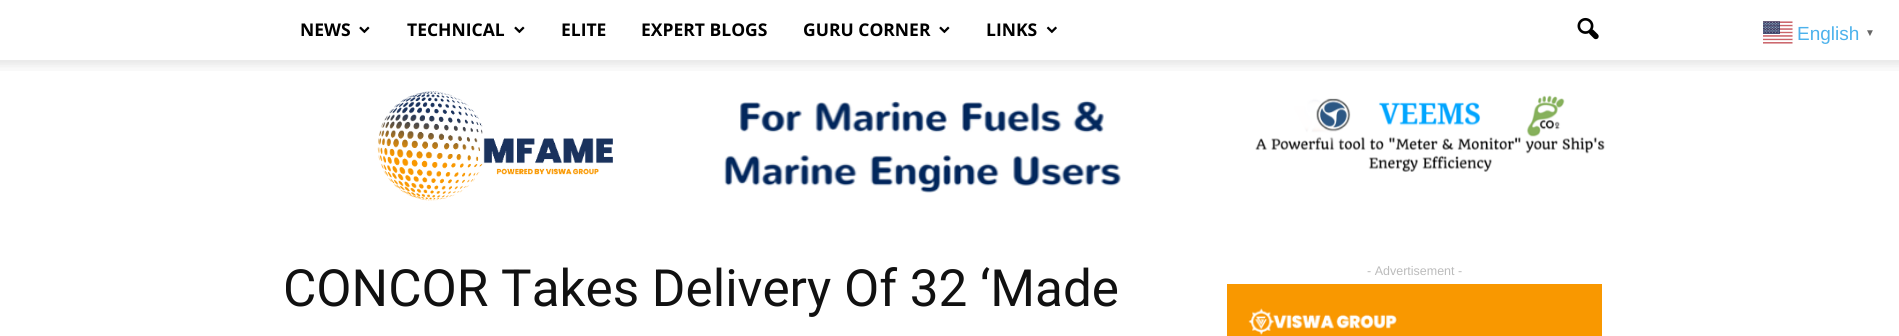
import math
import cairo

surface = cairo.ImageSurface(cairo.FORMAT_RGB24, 1899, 336)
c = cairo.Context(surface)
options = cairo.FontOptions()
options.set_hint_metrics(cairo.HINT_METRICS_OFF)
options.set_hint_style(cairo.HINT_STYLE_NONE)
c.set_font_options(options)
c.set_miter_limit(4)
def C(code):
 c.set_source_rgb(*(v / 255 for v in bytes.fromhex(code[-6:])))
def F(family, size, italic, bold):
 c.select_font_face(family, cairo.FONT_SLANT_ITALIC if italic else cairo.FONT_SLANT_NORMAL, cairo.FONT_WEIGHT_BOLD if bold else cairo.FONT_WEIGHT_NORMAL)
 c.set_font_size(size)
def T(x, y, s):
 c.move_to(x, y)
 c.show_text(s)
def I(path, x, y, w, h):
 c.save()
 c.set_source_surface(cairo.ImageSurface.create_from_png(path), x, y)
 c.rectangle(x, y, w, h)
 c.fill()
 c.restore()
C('ffffff')
c.paint()
F('Open Sans',17.5,0,1)
C('000000')
T(300,36,'NEWS')
I('1.png',359,26,11,8)
T(407,36,'TECHNICAL')
I('1.png',514,26,11,8)
T(561,36,'ELITE')
T(641,36,'EXPERT BLOGS')
T(803,36,'GURU CORNER')
I('1.png',939,26,11,8)
T(986,36,'LINKS')
I('2.png',1046,26,11,8)
I('3.png',1577,17,22,23)
I('4.png',0,60,1899,11)
I('5.png',377,91,236,110)
I('6.png',724,100,397,93)
I('7.png',1255,95,350,77)
F('Roboto',51.25,0,0)
C('111111')
T(283,306,'CONCOR Takes Delivery Of 32 ‘Made')
F('Liberation Sans',12.5,0,0)
C('bbbbbb')
T(1367,275,'- Advertisement -')
I('8.png',1227,284,375,52)
I('9.png',1763,21,30,23)
F('Liberation Sans',19,0,0)
C('4db2ec')
T(1797,40,'English')
F('Liberation Sans',10,0,1)
C('666666')
T(1865,36,'▼')
surface.write_to_png('o.png')
